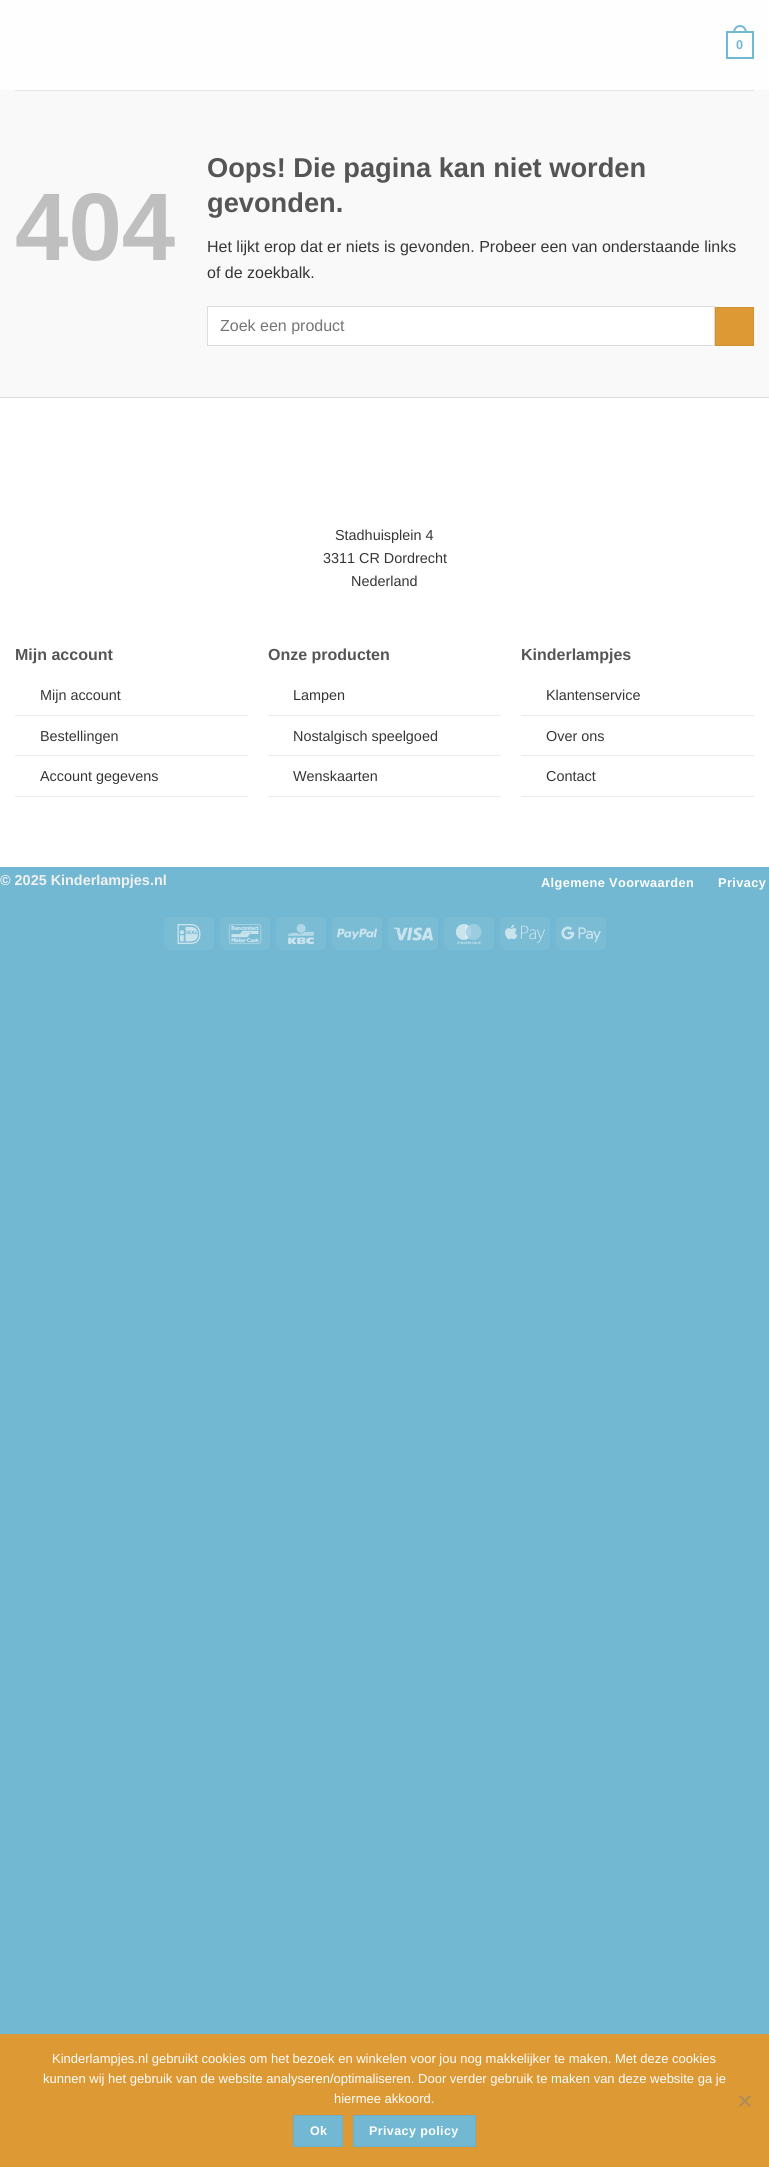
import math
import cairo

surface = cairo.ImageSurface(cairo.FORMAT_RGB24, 769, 2167)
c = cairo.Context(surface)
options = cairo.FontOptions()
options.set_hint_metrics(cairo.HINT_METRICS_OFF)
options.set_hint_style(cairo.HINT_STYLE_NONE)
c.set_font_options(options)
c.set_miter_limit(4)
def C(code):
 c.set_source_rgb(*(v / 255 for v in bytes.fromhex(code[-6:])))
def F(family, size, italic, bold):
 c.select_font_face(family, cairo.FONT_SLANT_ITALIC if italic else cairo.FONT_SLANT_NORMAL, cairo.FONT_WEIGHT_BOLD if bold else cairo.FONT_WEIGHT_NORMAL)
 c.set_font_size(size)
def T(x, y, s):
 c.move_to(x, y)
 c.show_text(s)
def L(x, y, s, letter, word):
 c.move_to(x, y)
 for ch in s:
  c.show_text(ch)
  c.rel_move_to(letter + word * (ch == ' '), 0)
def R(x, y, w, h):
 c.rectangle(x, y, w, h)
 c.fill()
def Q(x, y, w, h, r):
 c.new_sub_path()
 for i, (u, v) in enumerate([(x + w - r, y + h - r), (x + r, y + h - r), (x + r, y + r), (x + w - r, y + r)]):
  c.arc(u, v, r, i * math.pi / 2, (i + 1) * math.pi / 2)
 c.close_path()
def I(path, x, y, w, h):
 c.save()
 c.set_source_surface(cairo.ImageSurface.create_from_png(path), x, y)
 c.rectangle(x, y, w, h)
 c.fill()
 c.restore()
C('73b8d2')
c.paint()
C('f8f9f8')
R(0,90,769,307)
C('fefefe')
R(0,0,769,90)
c.rectangle(727,32,26,26)
C('73b8d2')
c.stroke()
c.set_fill_rule(cairo.FILL_RULE_EVEN_ODD)
c.new_path()
c.move_to(740,25)
c.curve_to(744.5,25,747,29,747,33)
c.line_to(733,33)
c.curve_to(733,29,735.5,25,740,25)
c.close_path()
c.move_to(740,27)
c.curve_to(743.5,27,745,30,745,33)
c.line_to(735,33)
c.curve_to(735,30,736.5,27,740,27)
c.close_path()
c.fill()
F('Liberation Sans',12.75,0,1)
T(736,49,'0')
C('e5e5e5')
R(15,90,739,1)
F('Liberation Sans',96,0,1)
C('bebfbe')
T(15,260,'404')
F('Liberation Sans',27.25,0,1)
C('555555')
T(207,177,'Oops! Die pagina kan niet worden')
T(207,212,'gevonden.')
F('Liberation Sans',16,0,0)
C('363636')
T(207,252,'Het lijkt erop dat er niets is gevonden. Probeer een van onderstaande links')
T(207,278,'of de zoekbalk.')
C('ffffff')
c.rectangle(207.5,306.5,507,39)
c.fill_preserve()
C('dddddd')
c.set_line_width(1)
c.stroke()
C('757575')
T(220,331,'Zoek een product')
C('dd9933')
c.rectangle(715.5,307.5,38,38)
c.fill_preserve()
C('d29130')
c.stroke()
C('dfe0df')
R(0,397,769,1)
C('ffffff')
R(0,398,769,469)
F('Liberation Sans',14.4,0,0)
C('363636')
T(335,540,'Stadhuisplein 4')
T(323,563,'3311 CR Dordrecht')
T(351,586,'Nederland')
F('Liberation Sans',16,0,1)
C('555555')
T(15,660,'Mijn account')
C('ececec')
R(15,715,233,1)
F('Liberation Sans',14.4,0,0)
C('363636')
T(40,700,'Mijn account')
C('ececec')
R(15,755,233,1)
C('363636')
T(40,741,'Bestellingen')
C('ececec')
R(15,796,233,1)
C('363636')
T(40,781,'Account gegevens')
F('Liberation Sans',16,0,1)
C('555555')
T(268,660,'Onze producten')
C('ececec')
R(268,715,233,1)
F('Liberation Sans',14.4,0,0)
C('363636')
T(293,700,'Lampen')
C('ececec')
R(268,755,233,1)
C('363636')
T(293,741,'Nostalgisch speelgoed')
C('ececec')
R(268,796,233,1)
C('363636')
T(293,781,'Wenskaarten')
F('Liberation Sans',16,0,1)
C('555555')
T(521,660,'Kinderlampjes')
C('ececec')
R(521,715,233,1)
F('Liberation Sans',14.4,0,0)
C('363636')
T(546,700,'Klantenservice')
C('ececec')
R(521,755,233,1)
C('363636')
T(546,741,'Over ons')
C('ececec')
R(521,796,233,1)
C('363636')
T(546,781,'Contact')
F('Liberation Sans',14.4,0,1)
C('f1f1f1')
T(0,885,'© 2025 Kinderlampjes.nl')
F('Liberation Sans',12.75,0,1)
C('ffffff')
L(541,887,'Algemene Voorwaarden',.4,0)
L(718,887,'Privacy',.4,0)
C('7bbcd5')
Q(164,917,50,33,5)
c.fill()
I('1.png',177,924,24,20)
Q(220,917,50,33,5)
c.fill()
I('2.png',228,924,34,20)
Q(276,917,50,33,5)
c.fill()
I('3.png',288,924,26,20)
Q(332,917,50,33,5)
c.fill()
I('4.png',337,928,40,12)
Q(388,917,50,33,5)
c.fill()
I('5.png',393,927,40,14)
Q(444,917,50,33,5)
c.fill()
I('6.png',455,924,27,20)
Q(500,917,50,33,5)
c.fill()
I('7.png',505,924,40,20)
Q(556,917,50,33,5)
c.fill()
I('8.png',561,926,40,17)
C('dd9933')
R(0,2034,769,133)
F('Liberation Sans',13,0,0)
C('ffffff')
T(52,2063,'Kinderlampjes.nl gebruikt cookies om het bezoek en winkelen voor jou nog makkelijker te maken. Met deze cookies')
T(43,2083,'kunnen wij het gebruik van de website analyseren/optimaliseren. Door verder gebruik te maken van deze website ga je')
T(334,2103,'hiermee akkoord.')
C('af8d5a')
c.set_fill_rule(cairo.FILL_RULE_WINDING)
c.new_path()
c.move_to(749.5,2095)
c.line_to(751,2096.5)
c.line_to(740.5,2107)
c.line_to(739,2105.5)
c.close_path()
c.fill()
c.new_path()
c.move_to(739,2096.5)
c.line_to(740.5,2095)
c.line_to(751,2105.5)
c.line_to(749.5,2107)
c.close_path()
c.fill()
C('73b8d2')
c.rectangle(293.5,2115.5,49,31)
c.fill_preserve()
C('6dafc8')
c.stroke()
F('Liberation Sans',12.5,0,1)
C('ffffff')
L(310,2135,'Ok',.4,0)
C('73b8d2')
c.rectangle(353.5,2115.5,122,31)
c.fill_preserve()
C('6dafc8')
c.stroke()
C('ffffff')
L(369,2135,'Privacy policy',.4,0)
surface.write_to_png('o.png')
